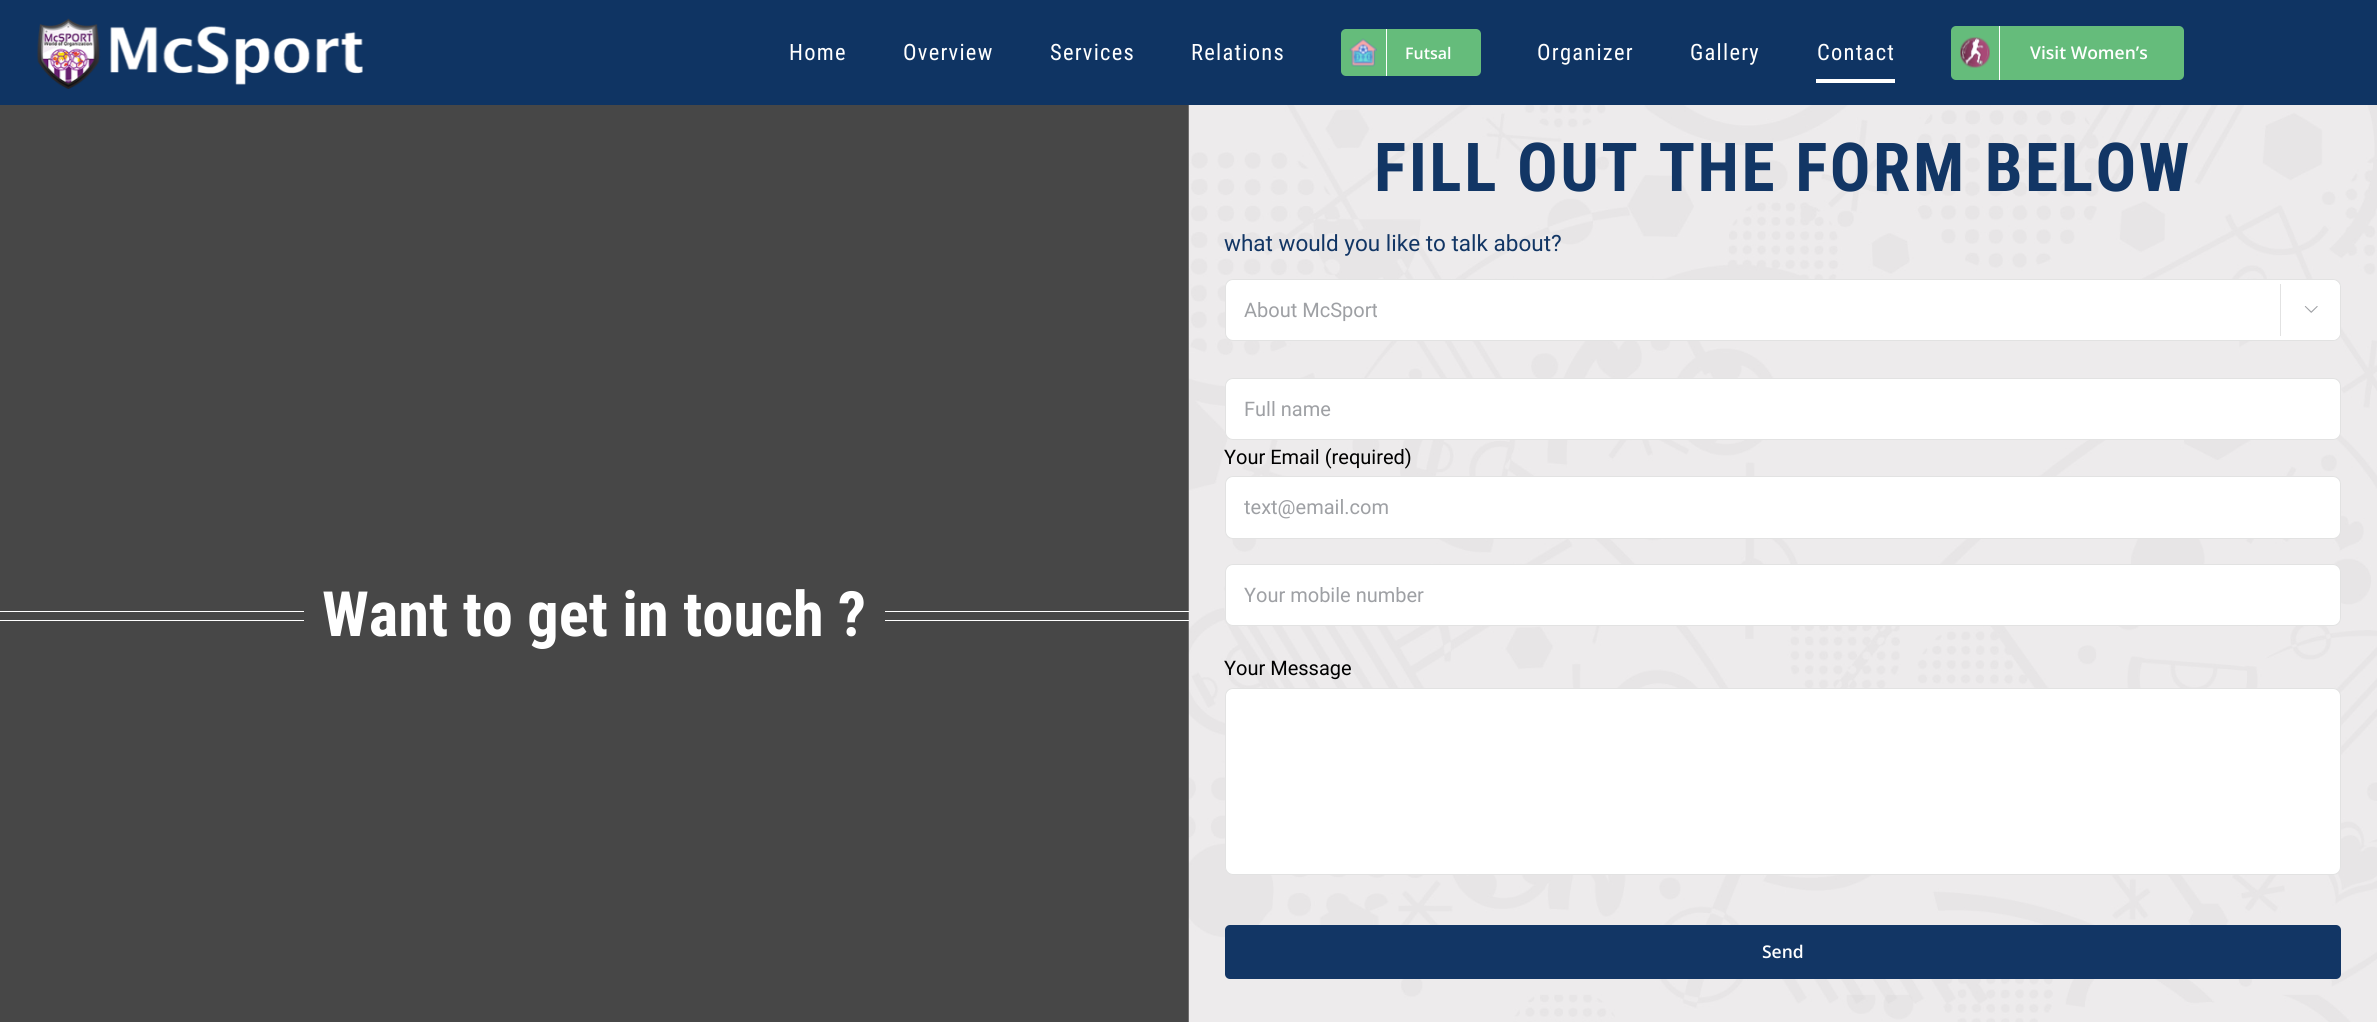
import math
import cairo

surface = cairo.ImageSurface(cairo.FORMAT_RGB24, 2377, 1022)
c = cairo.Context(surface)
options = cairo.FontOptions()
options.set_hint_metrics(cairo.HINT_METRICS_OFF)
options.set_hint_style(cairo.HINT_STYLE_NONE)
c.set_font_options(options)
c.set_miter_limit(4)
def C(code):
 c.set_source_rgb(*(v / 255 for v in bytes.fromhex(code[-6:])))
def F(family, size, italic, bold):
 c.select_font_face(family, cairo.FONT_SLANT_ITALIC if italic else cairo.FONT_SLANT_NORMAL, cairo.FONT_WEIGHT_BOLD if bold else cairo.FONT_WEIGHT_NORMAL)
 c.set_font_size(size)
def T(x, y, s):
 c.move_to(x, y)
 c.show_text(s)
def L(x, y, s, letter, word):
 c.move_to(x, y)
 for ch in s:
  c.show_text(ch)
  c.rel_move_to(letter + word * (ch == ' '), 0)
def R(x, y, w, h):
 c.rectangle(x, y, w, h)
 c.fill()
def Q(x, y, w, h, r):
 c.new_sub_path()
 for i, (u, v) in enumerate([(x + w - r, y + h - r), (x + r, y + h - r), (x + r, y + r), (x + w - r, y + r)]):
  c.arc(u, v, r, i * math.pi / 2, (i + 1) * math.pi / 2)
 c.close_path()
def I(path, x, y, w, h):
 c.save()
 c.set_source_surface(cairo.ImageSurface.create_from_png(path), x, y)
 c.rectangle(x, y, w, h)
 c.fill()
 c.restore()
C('474747')
c.paint()
C('0f3463')
R(0,0,2377,105)
I('1.png',37,18,326,71)
F('Roboto Condensed',22.5,0,0)
C('ffffff')
L(789,60,'Home',1.25,0)
L(903,60,'Overview',1.25,0)
L(1050,60,'Services',1.25,0)
L(1191,60,'Relations',1.25,0)
C('65bc7b')
Q(1341,29,140,47,5)
c.fill()
C('ffffff')
R(1386,29,1,47)
I('2.png',1349,38,28,29)
F('Open Sans SemiBold',16,0,0)
T(1405,59,'Futsal')
F('Roboto Condensed',22.5,0,0)
L(1537,60,'Organizer',1.25,0)
L(1690,60,'Gallery',1.25,0)
L(1817,60,'Contact',1.25,0)
R(1816,79,79,4)
C('65bc7b')
Q(1951,26,233,54,5)
c.fill()
C('ffffff')
R(1999,26,1,54)
I('3.png',1960,37,30,31)
F('Open Sans SemiBold',17.5,0,0)
T(2030,59,'Visit Women’s')
R(0,611,304,1)
R(0,620,304,1)
F('Roboto Condensed',62.5,0,1)
T(322,636,'Want to get in touch ?')
R(885,611,304,1)
R(885,620,304,1)
I('4.png',1188,105,1189,917)
F('Roboto Condensed',67.5,0,1)
C('123665')
L(1374,191,'FILL OUT THE FORM BELOW',2.5,0)
F('Roboto',22.5,0,0)
T(1224,251,'what would you like to talk about?')
C('ffffff')
Q(1225.5,279.5,1115,61,7.5)
c.fill_preserve()
C('e2e2e2')
c.set_line_width(1)
c.stroke()
F('Roboto',20,0,0)
C('9ea0a4')
T(1244,317,'About McSport')
C('ffffff')
Q(2280,280,60,60,8)
c.fill()
C('e2e2e2')
R(2280,284,1,52)
I('5.png',2304,306,14,7)
C('ffffff')
Q(1225.5,378.5,1115,61,7.5)
c.fill_preserve()
C('e2e2e2')
c.stroke()
C('9ea0a4')
T(1244,416,'Full name')
C('000000')
T(1224,464,'Your Email (required)')
C('ffffff')
Q(1225.5,476.5,1115,62,7.5)
c.fill_preserve()
C('e2e2e2')
c.stroke()
C('9ea0a4')
T(1244,514,'text@email.com')
C('ffffff')
Q(1225.5,564.5,1115,61,7.5)
c.fill_preserve()
C('e2e2e2')
c.stroke()
C('9ea0a4')
T(1244,602,'Your mobile number')
C('000000')
T(1224,675,'Your Message')
C('ffffff')
Q(1225.5,688.5,1115,186,7.5)
c.fill_preserve()
C('e2e2e2')
c.stroke()
C('123665')
Q(1225,925,1116,54,5)
c.fill()
F('Open Sans SemiBold',17.5,0,0)
C('ffffff')
T(1762,958,'Send')
surface.write_to_png('o.png')
